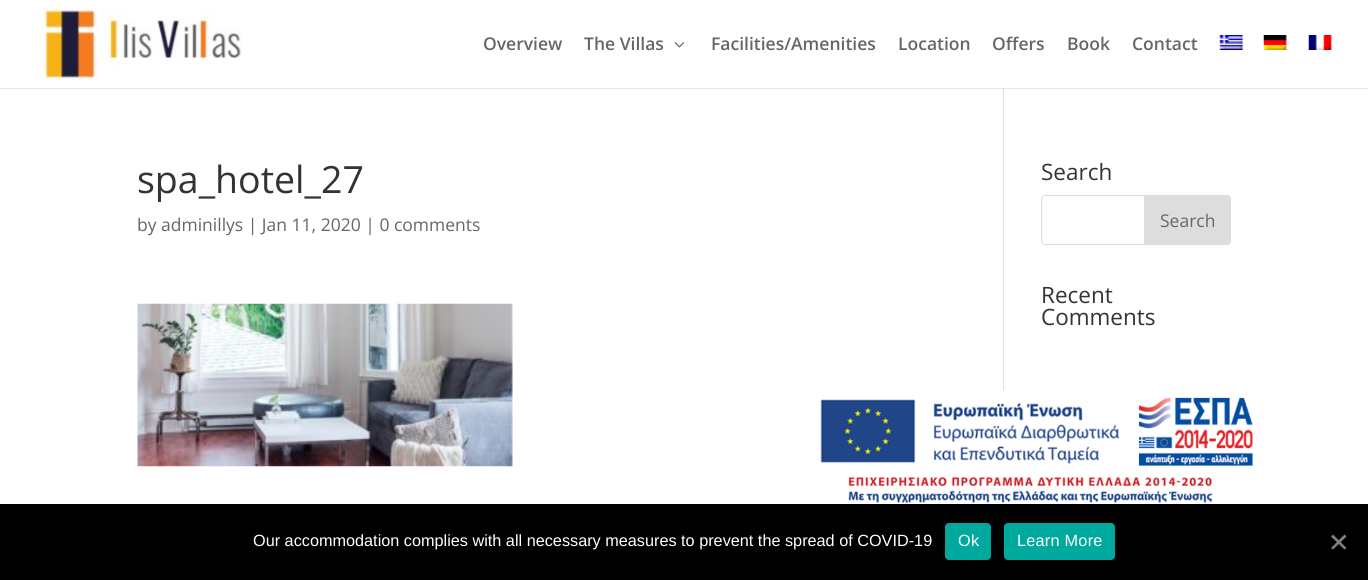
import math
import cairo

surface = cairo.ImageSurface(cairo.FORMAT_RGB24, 1368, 580)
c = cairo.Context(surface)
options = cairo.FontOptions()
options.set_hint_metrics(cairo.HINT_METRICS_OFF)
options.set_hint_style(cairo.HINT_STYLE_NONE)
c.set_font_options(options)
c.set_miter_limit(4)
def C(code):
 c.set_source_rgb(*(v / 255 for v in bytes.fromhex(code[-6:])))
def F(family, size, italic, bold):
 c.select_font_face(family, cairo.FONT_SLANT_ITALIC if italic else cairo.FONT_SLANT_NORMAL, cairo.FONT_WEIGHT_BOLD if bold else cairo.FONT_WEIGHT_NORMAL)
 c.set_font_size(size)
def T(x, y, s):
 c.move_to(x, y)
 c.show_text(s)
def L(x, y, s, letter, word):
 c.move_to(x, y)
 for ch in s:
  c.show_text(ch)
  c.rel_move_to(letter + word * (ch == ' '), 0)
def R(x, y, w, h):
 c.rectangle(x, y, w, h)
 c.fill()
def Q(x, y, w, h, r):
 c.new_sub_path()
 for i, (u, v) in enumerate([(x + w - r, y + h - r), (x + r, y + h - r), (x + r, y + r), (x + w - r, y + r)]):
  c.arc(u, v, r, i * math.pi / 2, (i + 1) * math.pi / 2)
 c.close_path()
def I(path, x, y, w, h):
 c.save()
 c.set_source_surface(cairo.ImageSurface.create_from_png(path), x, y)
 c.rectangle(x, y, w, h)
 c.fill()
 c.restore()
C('ffffff')
c.paint()
C('e2e2e2')
R(1003,88,1,302)
c.set_source_rgba(0,0,0,0.1)
c.new_path()
c.move_to(0,88)
c.line_to(0,89)
c.line_to(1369,89)
c.line_to(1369,1)
c.line_to(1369,88)
c.close_path()
c.fill()
I('1.png',42,7,200,74)
F('Open Sans SemiBold',17.5,0,0)
C('666666')
T(483,50,'Overview')
T(584,50,'The Villas')
I('2.png',674,42,10,6)
T(711,50,'Facilities/Amenities')
T(898,50,'Location')
T(992,50,'Offers')
T(1067,50,'Book')
T(1132,50,'Contact')
I('3.png',1219,35,24,15)
I('4.png',1263,35,24,15)
I('5.png',1308,35,24,15)
F('Open Sans',37.5,0,0)
C('333333')
T(137,193,'spa_hotel_27')
F('Open Sans',17.5,0,0)
C('666666')
T(137,231,'by adminillys | Jan 11, 2020 | 0 comments')
I('6.png',137,303,376,164)
F('Open Sans',22.5,0,0)
C('333333')
T(1041,180,'Search')
Q(1041.5,195.5,189,49,3.5)
C('dddddd')
c.set_line_width(1)
c.stroke()
c.new_path()
c.move_to(1144.5,195.5)
c.line_to(1227,195.5)
c.curve_to(1229,195.5,1230.5,197,1230.5,199)
c.line_to(1230.5,241)
c.curve_to(1230.5,243,1229,244.5,1227,244.5)
c.line_to(1144.5,244.5)
c.close_path()
c.fill_preserve()
c.stroke()
F('Open Sans',17.5,0,0)
C('666666')
T(1160,227,'Search')
F('Open Sans',22.5,0,0)
C('333333')
T(1041,303,'Recent')
T(1041,325,'Comments')
I('7.png',820,390,433,114)
C('000000')
R(0,504,1368,76)
F('Liberation Sans',16.25,0,0)
C('ffffff')
T(253,546,'Our accommodation complies with all necessary measures to prevent the spread of COVID-19')
C('00a99d')
Q(945,523,46,37,4)
c.fill()
C('ffffff')
L(958,546,'Ok',.25,0)
C('00a99d')
Q(1004,523,111,37,4)
c.fill()
C('ffffff')
L(1017,546,'Learn More',.25,0)
C('808080')
c.new_path()
c.move_to(1344.5,534.5)
c.line_to(1346.5,536.5)
c.line_to(1333,549.5)
c.line_to(1331,548)
c.close_path()
c.fill()
c.new_path()
c.move_to(1331,536.5)
c.line_to(1333,534.5)
c.line_to(1346.5,548)
c.line_to(1344.5,549.5)
c.close_path()
c.fill()
surface.write_to_png('o.png')
